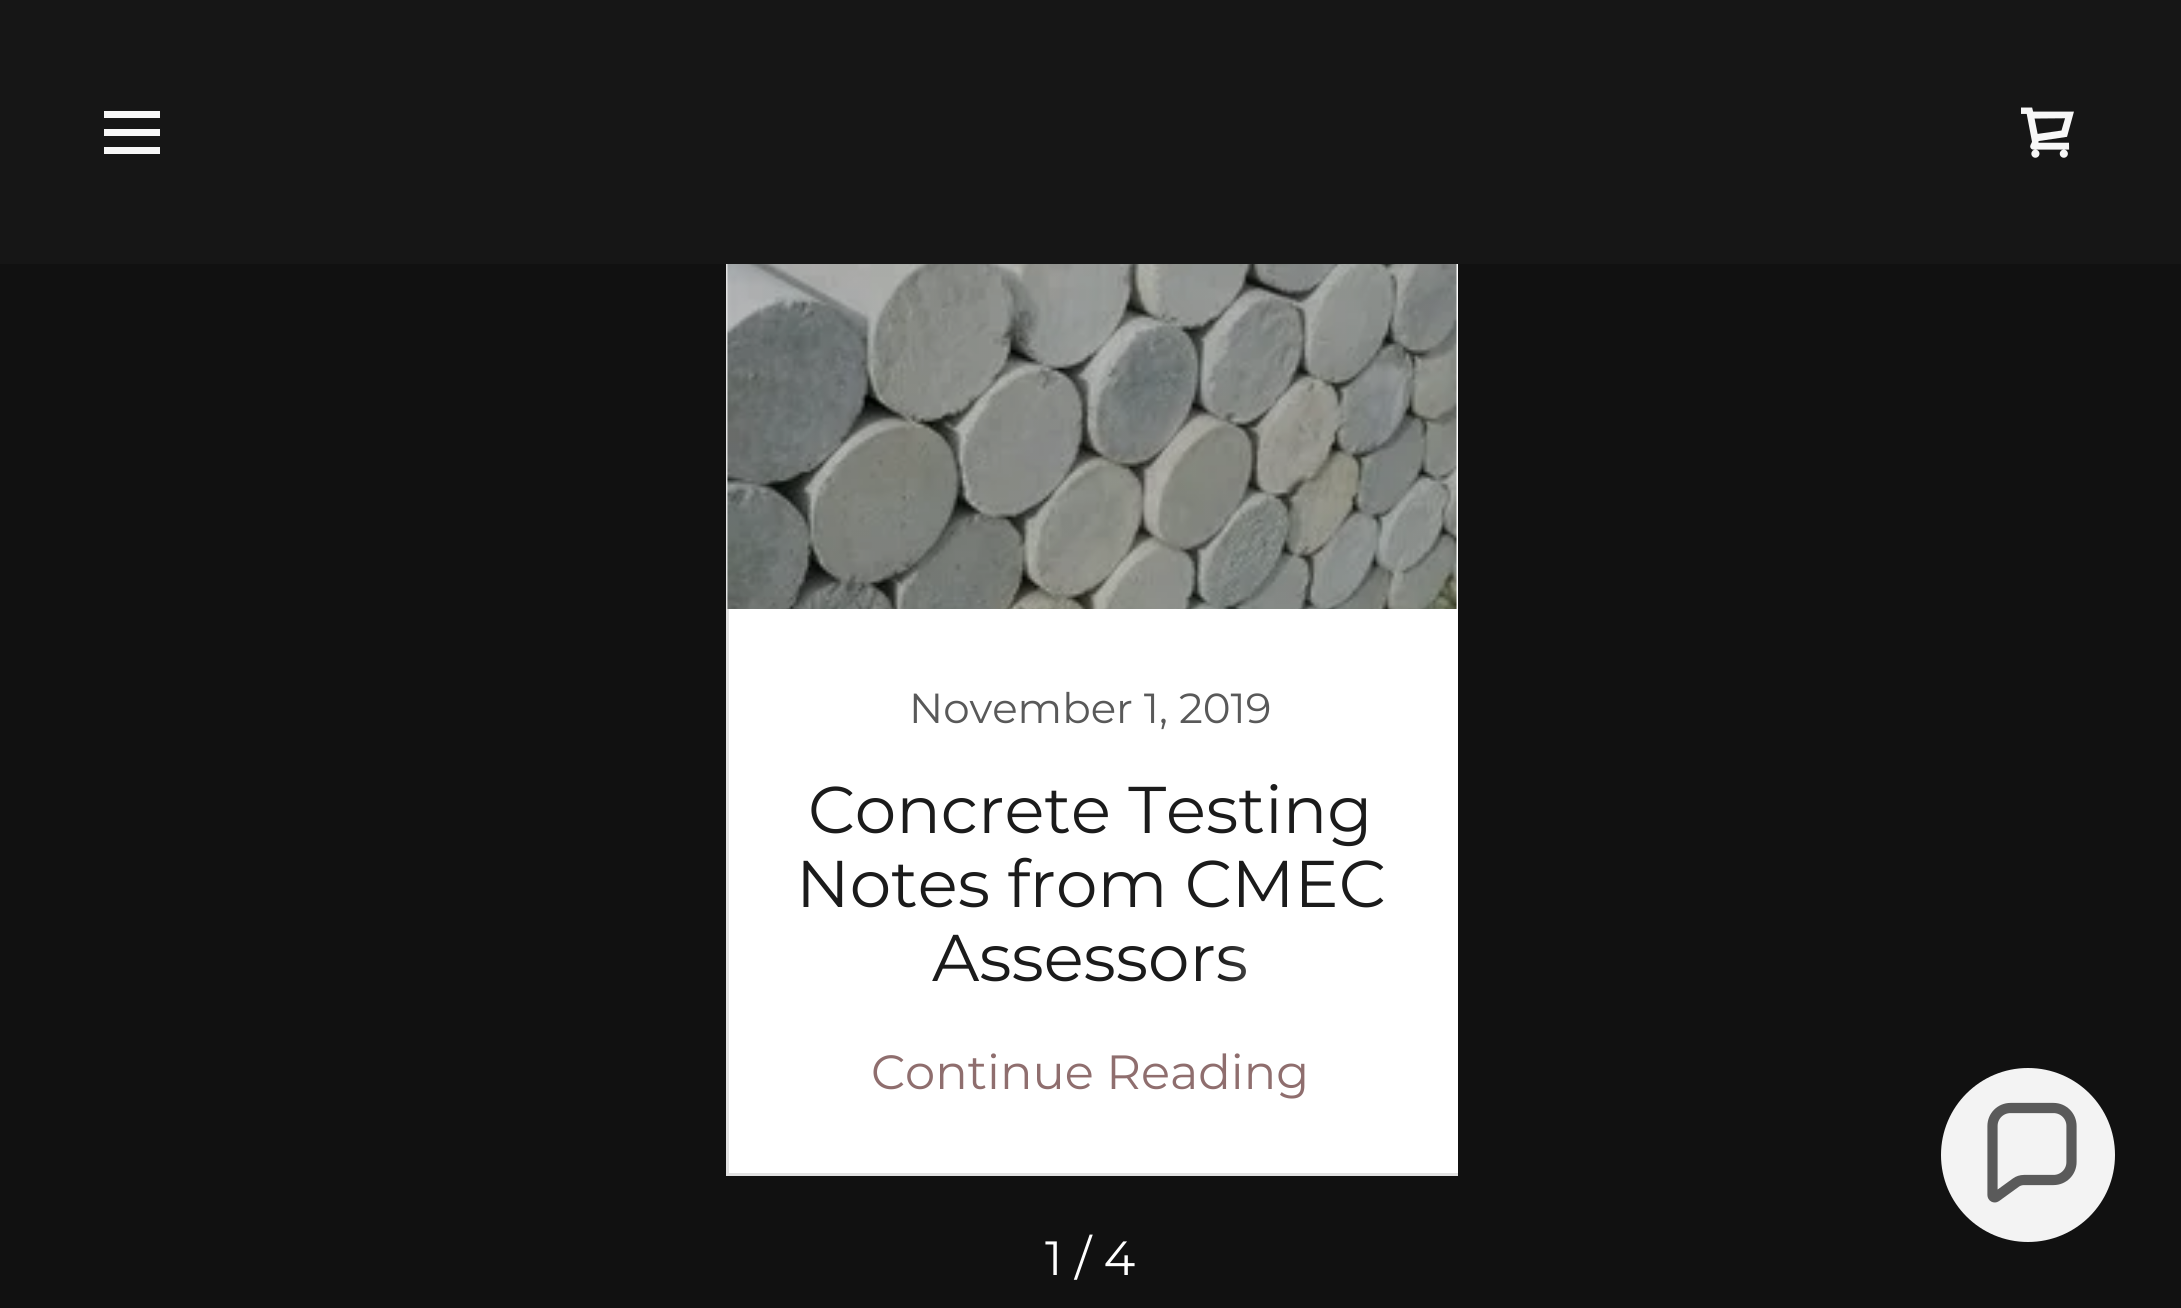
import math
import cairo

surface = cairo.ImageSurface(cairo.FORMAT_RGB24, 2181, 1308)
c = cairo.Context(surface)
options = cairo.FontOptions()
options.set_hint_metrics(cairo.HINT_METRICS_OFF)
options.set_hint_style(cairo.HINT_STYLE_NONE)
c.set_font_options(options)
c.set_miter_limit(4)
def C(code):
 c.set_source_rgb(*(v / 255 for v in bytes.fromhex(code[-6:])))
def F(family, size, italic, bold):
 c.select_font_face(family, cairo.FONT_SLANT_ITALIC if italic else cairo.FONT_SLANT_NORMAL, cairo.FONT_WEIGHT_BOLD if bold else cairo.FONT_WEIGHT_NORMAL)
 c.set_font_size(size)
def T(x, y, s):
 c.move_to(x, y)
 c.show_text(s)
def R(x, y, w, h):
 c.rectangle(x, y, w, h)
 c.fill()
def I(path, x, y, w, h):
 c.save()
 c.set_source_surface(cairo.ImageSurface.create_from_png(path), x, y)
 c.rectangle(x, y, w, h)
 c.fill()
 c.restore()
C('111111')
c.paint()
C('ffffff')
R(729,264,729,909)
c.save()
c.rectangle(723,186,735,990)
c.clip()
c.rectangle(727.5,187.5,732,987)
C('e2e2e2')
c.set_line_width(3)
c.stroke()
c.restore()
C('161616')
R(0,0,2181,264)
C('f7f7f7')
R(104,111,56,7)
R(104,129,56,7)
R(104,147,56,7)
I('1.png',2021,107,53,51)
I('2.png',727,264,730,345)
F('Montserrat',42,0,0)
C('595959')
T(909,723,'November 1, 2019')
F('Montserrat',66,0,0)
C('1b1b1b')
T(808,833,'Concrete Testing')
T(796,907,'Notes from CMEC')
T(932,981,'Assessors')
gradient = cairo.LinearGradient(1217,965,1409,965)
gradient.add_color_stop_rgba(0,1,1,1,0)
gradient.add_color_stop_rgba(1,1,1,1,1)
c.set_source(gradient)
R(1221,946,26,36)
F('Montserrat',48,0,0)
C('8f6e6e')
T(871,1089,'Continue Reading')
C('ffffff')
T(1045,1275,'1 / 4')
C('f3f3f3')
c.new_path()
c.arc(2028,1155,87,0,2 * math.pi)
c.fill()
c.new_path()
c.move_to(2053.5,1108)
c.line_to(2010.5,1108)
c.curve_to(2000.5,1108,1992.5,1116,1992.5,1126)
c.line_to(1992.5,1195)
c.curve_to(1992.5,1197,1994.5,1198,1996,1197)
c.line_to(2016,1182.5)
c.curve_to(2018,1181,2021,1180,2024,1180)
c.line_to(2053.5,1180)
c.curve_to(2063.5,1180,2071.5,1172,2071.5,1162)
c.line_to(2071.5,1126)
c.curve_to(2071.5,1116,2063.5,1108,2053.5,1108)
c.close_path()
C('5a5a5a')
c.set_line_width(10.2)
c.stroke()
surface.write_to_png('o.png')
